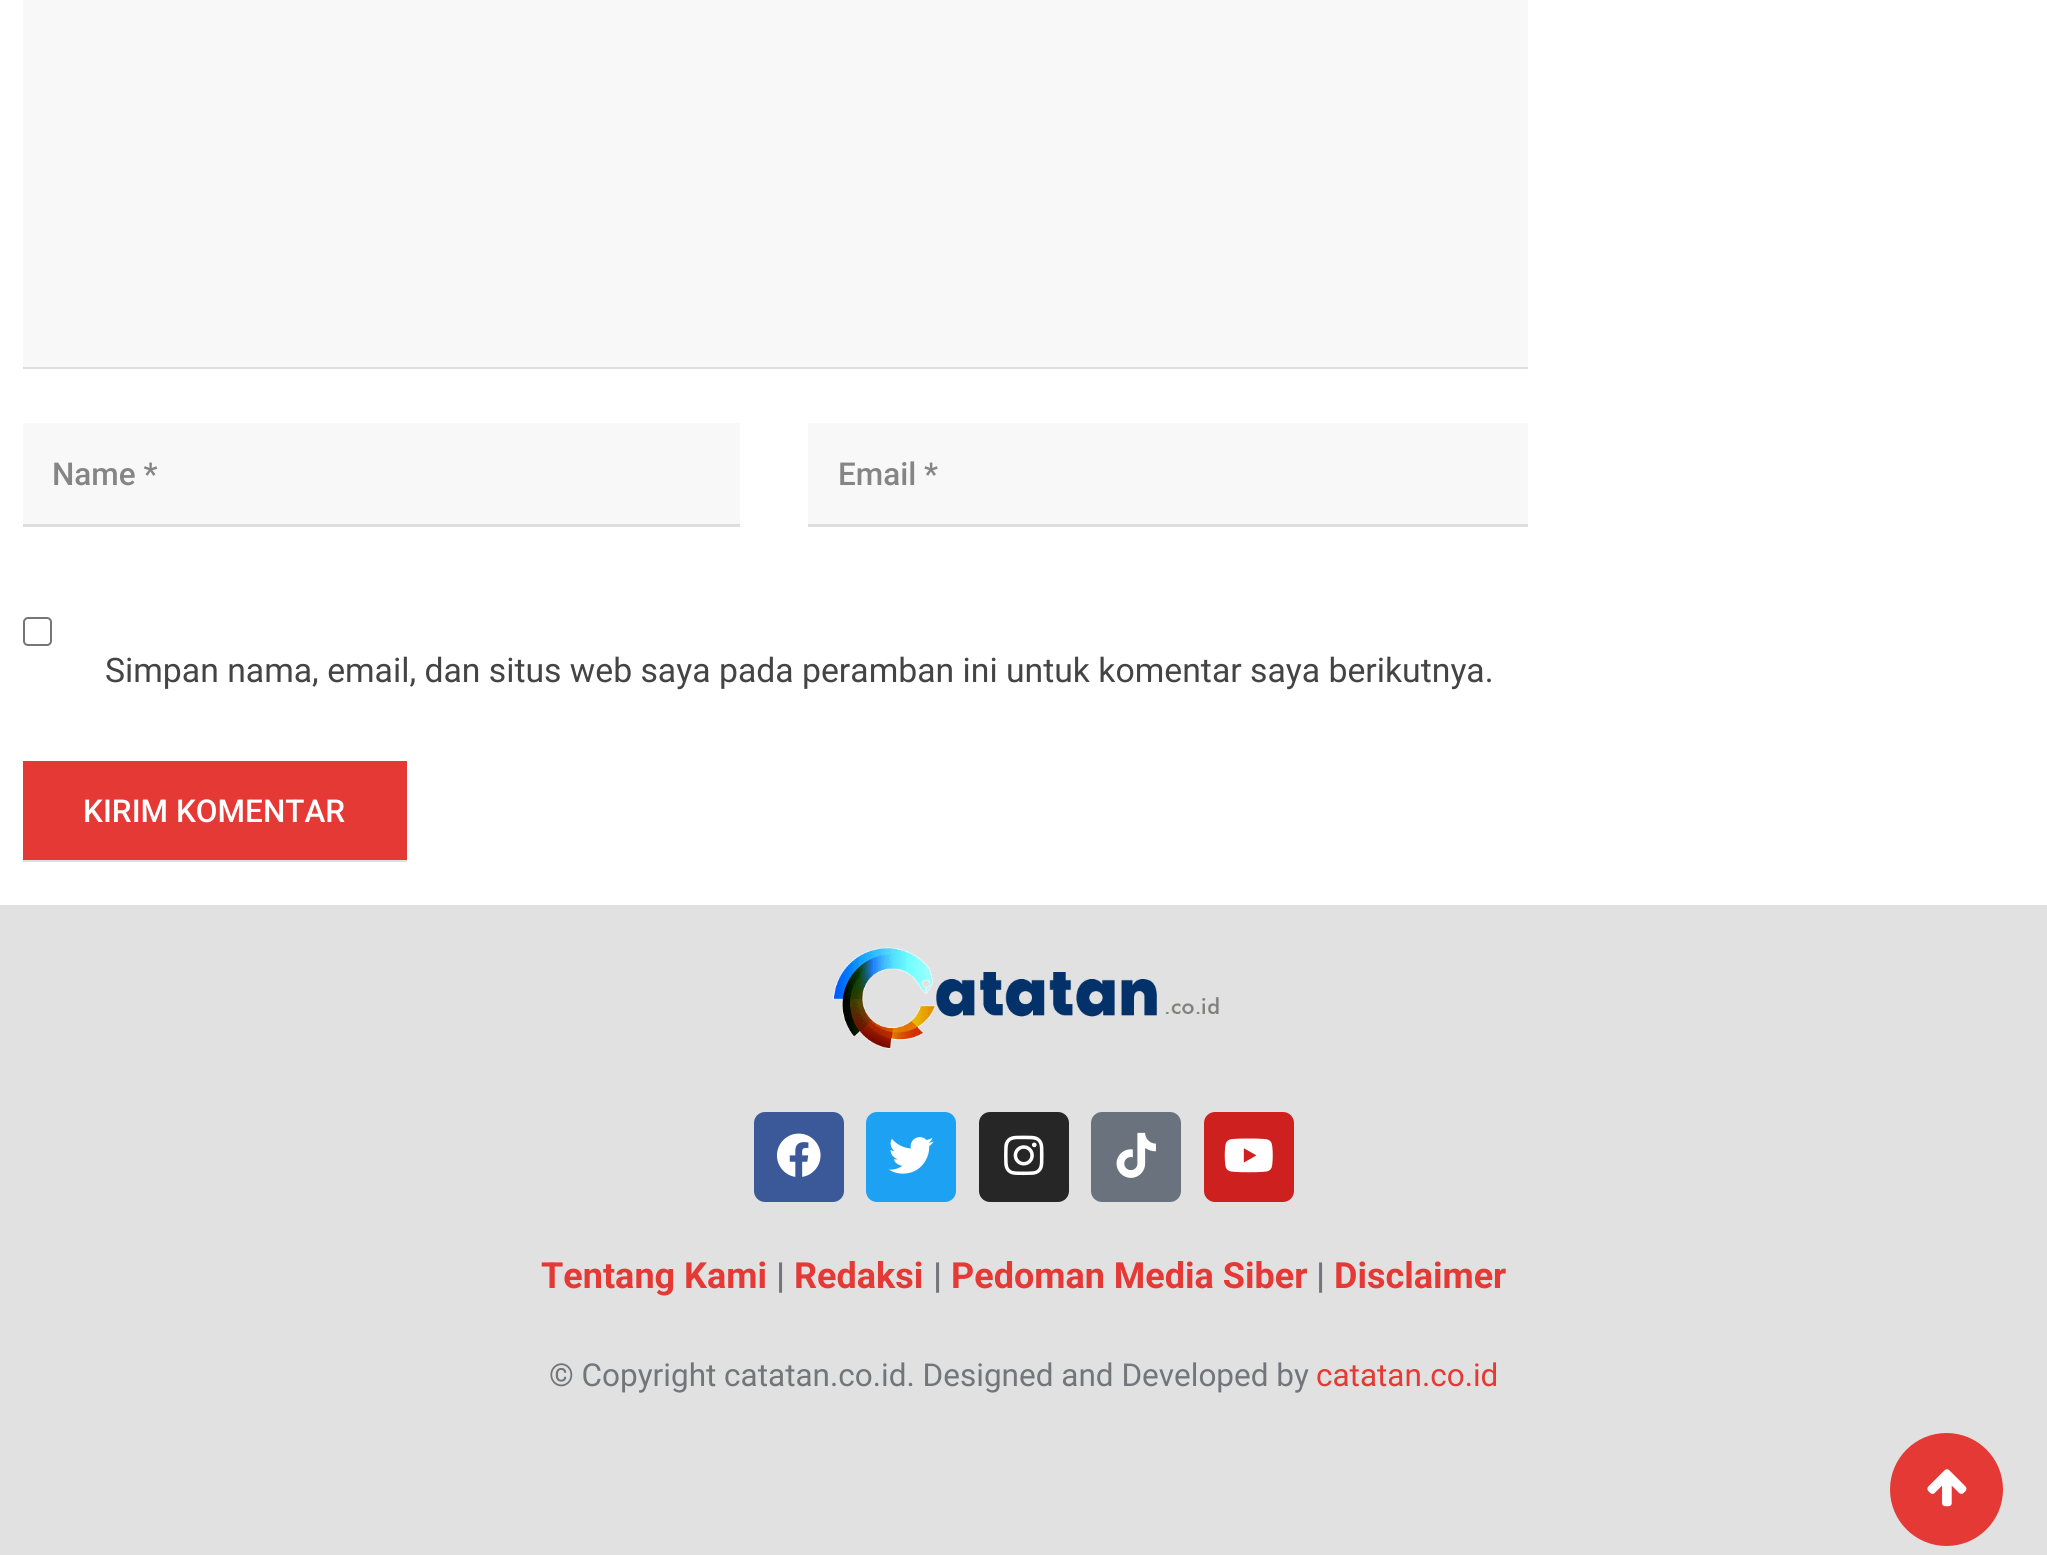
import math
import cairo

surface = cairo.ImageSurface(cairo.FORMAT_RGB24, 2047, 1555)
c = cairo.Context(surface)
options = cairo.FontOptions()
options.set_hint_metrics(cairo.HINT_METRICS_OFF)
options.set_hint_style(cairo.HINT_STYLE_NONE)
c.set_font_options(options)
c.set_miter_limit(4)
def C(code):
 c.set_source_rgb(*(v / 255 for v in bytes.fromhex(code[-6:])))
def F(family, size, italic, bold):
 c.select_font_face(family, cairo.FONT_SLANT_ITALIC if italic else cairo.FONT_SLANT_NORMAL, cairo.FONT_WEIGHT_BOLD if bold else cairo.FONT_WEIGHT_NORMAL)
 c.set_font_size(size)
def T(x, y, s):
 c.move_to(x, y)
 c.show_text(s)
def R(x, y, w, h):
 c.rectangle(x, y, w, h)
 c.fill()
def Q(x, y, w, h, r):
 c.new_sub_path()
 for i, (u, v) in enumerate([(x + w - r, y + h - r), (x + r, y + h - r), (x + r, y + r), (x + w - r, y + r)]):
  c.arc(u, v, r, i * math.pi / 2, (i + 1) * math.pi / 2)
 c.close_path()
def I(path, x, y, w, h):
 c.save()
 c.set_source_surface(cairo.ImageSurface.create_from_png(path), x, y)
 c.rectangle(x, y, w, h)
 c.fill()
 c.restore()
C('ffffff')
c.paint()
C('dedede')
c.new_path()
c.move_to(23,367)
c.line_to(23,369)
c.line_to(1528,369)
c.line_to(1528,-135)
c.line_to(1528,367)
c.close_path()
c.fill()
C('f8f8f8')
R(23,0,1505,367)
C('dedede')
R(23,524,717,3)
C('f8f8f8')
R(23,423,717,101)
F('Roboto Medium',31.5,0,0)
C('858585')
T(52,485,'Name *')
C('dedede')
c.new_path()
c.move_to(808,524)
c.line_to(808,527)
c.line_to(1528,527)
c.line_to(1528,425)
c.line_to(1528,524)
c.close_path()
c.fill()
C('f8f8f8')
R(808,423,720,101)
C('858585')
T(838,485,'Email *')
Q(24,618,27,27,4)
C('767676')
c.stroke()
F('Roboto',33.75,0,0)
C('444444')
T(105,682,'Simpan nama, email, dan situs web saya pada peramban ini untuk komentar saya berikutnya.')
C('dedede')
R(23,860,384,2)
C('e53935')
R(23,761,384,99)
F('Roboto Medium',31.5,0,0)
C('ffffff')
T(83,822,'KIRIM KOMENTAR')
C('e1e1e1')
R(0,905,2047,650)
I('1.png',833,947,386,102)
C('3b5998')
Q(754,1112,90,90,11)
c.fill()
I('2.png',776,1133,45,44)
C('1da1f2')
Q(866,1112,90,90,11)
c.fill()
I('3.png',889,1137,45,37)
C('262626')
Q(979,1112,90,90,11)
c.fill()
I('4.png',1004,1135,40,41)
C('69727d')
Q(1091,1112,90,90,11)
c.fill()
I('5.png',1116,1132,40,46)
C('cd201f')
Q(1204,1112,90,90,11)
c.fill()
I('6.png',1224,1138,49,35)
F('Roboto',36,0,1)
C('e53935')
T(541,1288,'Tentang Kami')
C('72767a')
T(776,1288,'|')
C('e53935')
T(794,1288,'Redaksi')
C('72767a')
T(933,1288,'|')
C('e53935')
T(951,1288,'Pedoman Media Siber')
C('72767a')
T(1316,1288,'|')
C('e53935')
T(1334,1288,'Disclaimer')
F('Roboto',31.5,0,0)
C('72767a')
T(549,1386,'© Copyright catatan.co.id. Designed and Developed by')
C('e53935')
T(1316,1386,'catatan.co.id')
c.new_path()
c.arc(1946.5,1489.5,54,0,2 * math.pi)
c.fill_preserve()
c.set_line_width(5)
c.stroke()
I('7.png',1927,1469,40,38)
surface.write_to_png('o.png')
